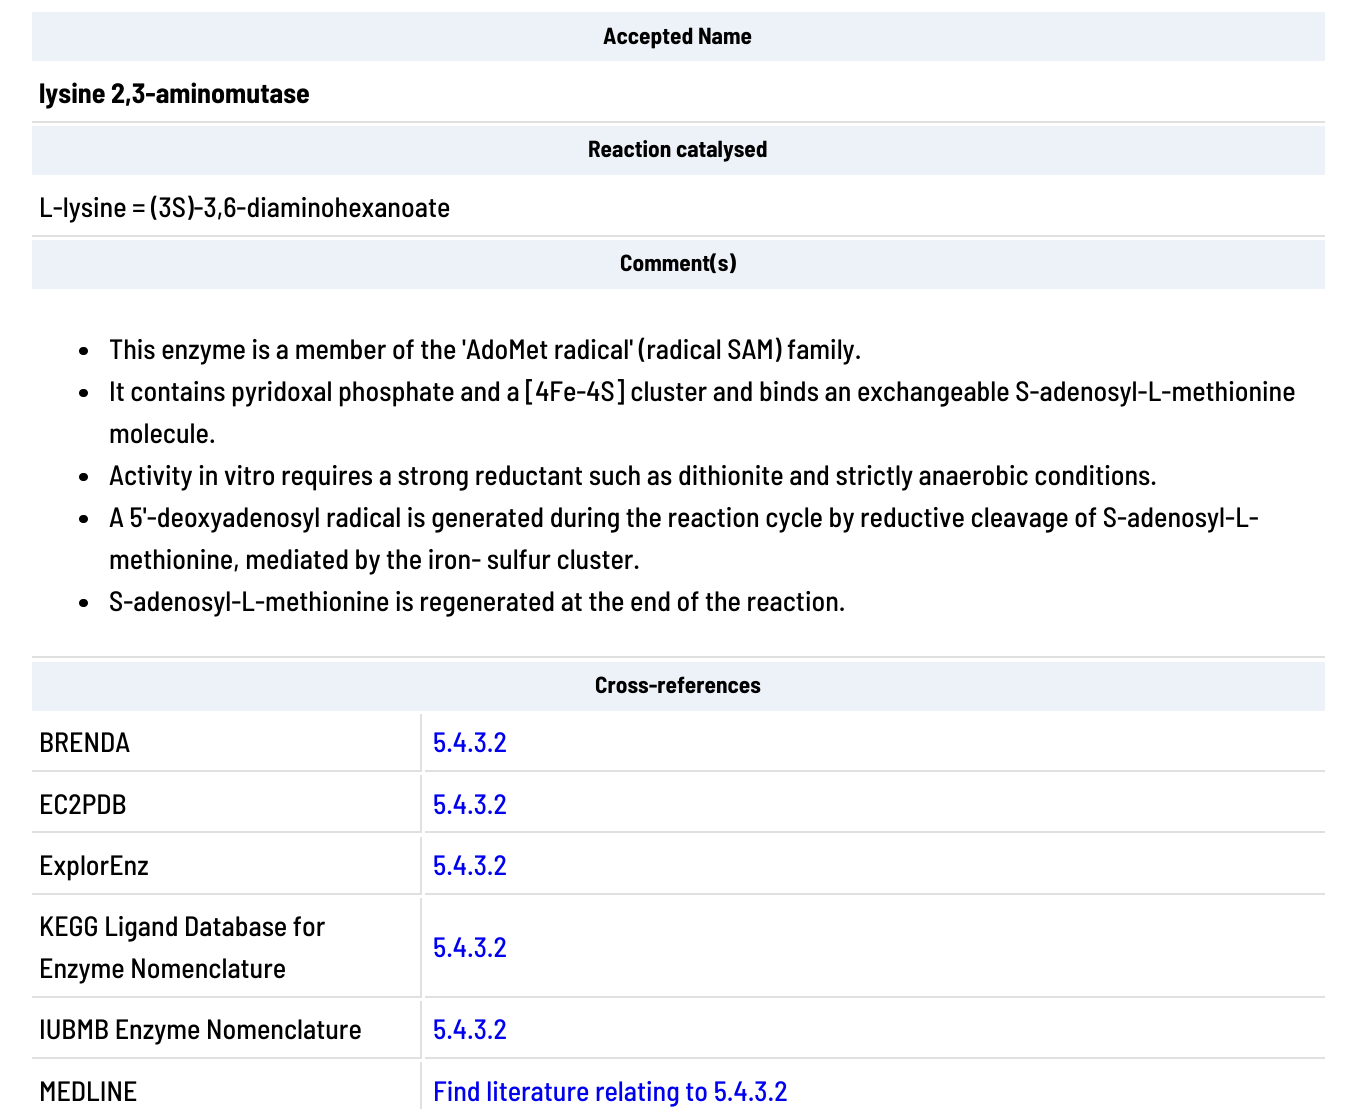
import math
import cairo

surface = cairo.ImageSurface(cairo.FORMAT_RGB24, 1356, 1109)
c = cairo.Context(surface)
options = cairo.FontOptions()
options.set_hint_metrics(cairo.HINT_METRICS_OFF)
options.set_hint_style(cairo.HINT_STYLE_NONE)
c.set_font_options(options)
c.set_miter_limit(4)
def C(code):
 c.set_source_rgb(*(v / 255 for v in bytes.fromhex(code[-6:])))
def F(family, size, italic, bold):
 c.select_font_face(family, cairo.FONT_SLANT_ITALIC if italic else cairo.FONT_SLANT_NORMAL, cairo.FONT_WEIGHT_BOLD if bold else cairo.FONT_WEIGHT_NORMAL)
 c.set_font_size(size)
def T(x, y, s):
 c.move_to(x, y)
 c.show_text(s)
def R(x, y, w, h):
 c.rectangle(x, y, w, h)
 c.fill()
def Q(x, y, w, h, r):
 c.new_sub_path()
 for i, (u, v) in enumerate([(x + w - r, y + h - r), (x + r, y + h - r), (x + r, y + r), (x + w - r, y + r)]):
  c.arc(u, v, r, i * math.pi / 2, (i + 1) * math.pi / 2)
 c.close_path()
C('ffffff')
c.paint()
C('ecf2f8')
R(32,12,1293,49)
F('Barlow Semi Condensed',23.25,0,1)
C('000000')
T(603,44,'Accepted Name')
C('e0e0e0')
R(32,121,1293,2)
F('Barlow Semi Condensed',28,0,1)
C('000000')
T(39,103,'lysine 2,3-aminomutase')
C('ecf2f8')
R(32,126,1293,49)
F('Barlow Semi Condensed',23.25,0,1)
C('000000')
T(588,157,'Reaction catalysed')
C('e0e0e0')
R(32,235,1293,2)
F('Barlow Semi Condensed Medium',28,0,0)
C('000000')
T(39,217,'L-lysine = (3S)-3,6-diaminohexanoate')
C('ecf2f8')
R(32,240,1293,49)
F('Barlow Semi Condensed',23.25,0,1)
C('000000')
T(620,271,'Comment(s)')
C('e0e0e0')
R(32,656,1293,2)
C('000000')
Q(79,347,9,8,4)
c.fill()
F('Barlow Semi Condensed Medium',28,0,0)
T(109,359,'This enzyme is a member of the \'AdoMet radical\' (radical SAM) family.')
Q(79,389,9,8,4)
c.fill()
T(109,401,'It contains pyridoxal phosphate and a [4Fe-4S] cluster and binds an exchangeable S-adenosyl-L-methionine')
T(109,443,'molecule.')
Q(79,473,9,8,4)
c.fill()
T(109,485,'Activity in vitro requires a strong reductant such as dithionite and strictly anaerobic conditions.')
Q(79,515,9,8,4)
c.fill()
T(109,527,'A 5\'-deoxyadenosyl radical is generated during the reaction cycle by reductive cleavage of S-adenosyl-L-')
T(109,569,'methionine, mediated by the iron- sulfur cluster.')
Q(79,599,9,8,4)
c.fill()
T(109,611,'S-adenosyl-L-methionine is regenerated at the end of the reaction.')
C('ecf2f8')
R(32,662,1293,49)
F('Barlow Semi Condensed',23.25,0,1)
C('000000')
T(595,693,'Cross-references')
C('e0e0e0')
R(420,714,2,58)
R(32,770,390,2)
F('Barlow Semi Condensed Medium',28,0,0)
C('000000')
T(39,752,'BRENDA')
C('e0e0e0')
R(425,770,900,2)
C('0000ee')
T(433,752,'5.4.3.2')
C('e0e0e0')
R(420,775,2,58)
R(32,831,390,2)
C('000000')
T(39,814,'EC2PDB')
C('e0e0e0')
R(425,831,900,2)
C('0000ee')
T(433,814,'5.4.3.2')
C('e0e0e0')
R(420,837,2,57)
R(32,893,390,2)
C('000000')
T(39,875,'ExplorEnz')
C('e0e0e0')
R(425,893,900,2)
C('0000ee')
T(433,875,'5.4.3.2')
C('e0e0e0')
R(420,898,2,100)
R(32,996,390,2)
C('000000')
T(39,936,'KEGG Ligand Database for')
T(39,978,'Enzyme Nomenclature')
C('e0e0e0')
R(425,996,900,2)
C('0000ee')
T(433,957,'5.4.3.2')
C('e0e0e0')
R(420,1001,2,58)
R(32,1057,390,2)
C('000000')
T(39,1039,'IUBMB Enzyme Nomenclature')
C('e0e0e0')
R(425,1057,900,2)
C('0000ee')
T(433,1039,'5.4.3.2')
C('e0e0e0')
R(420,1062,2,47)
C('000000')
T(39,1101,'MEDLINE')
C('0000ee')
T(433,1101,'Find literature relating to 5.4.3.2')
surface.write_to_png('o.png')
